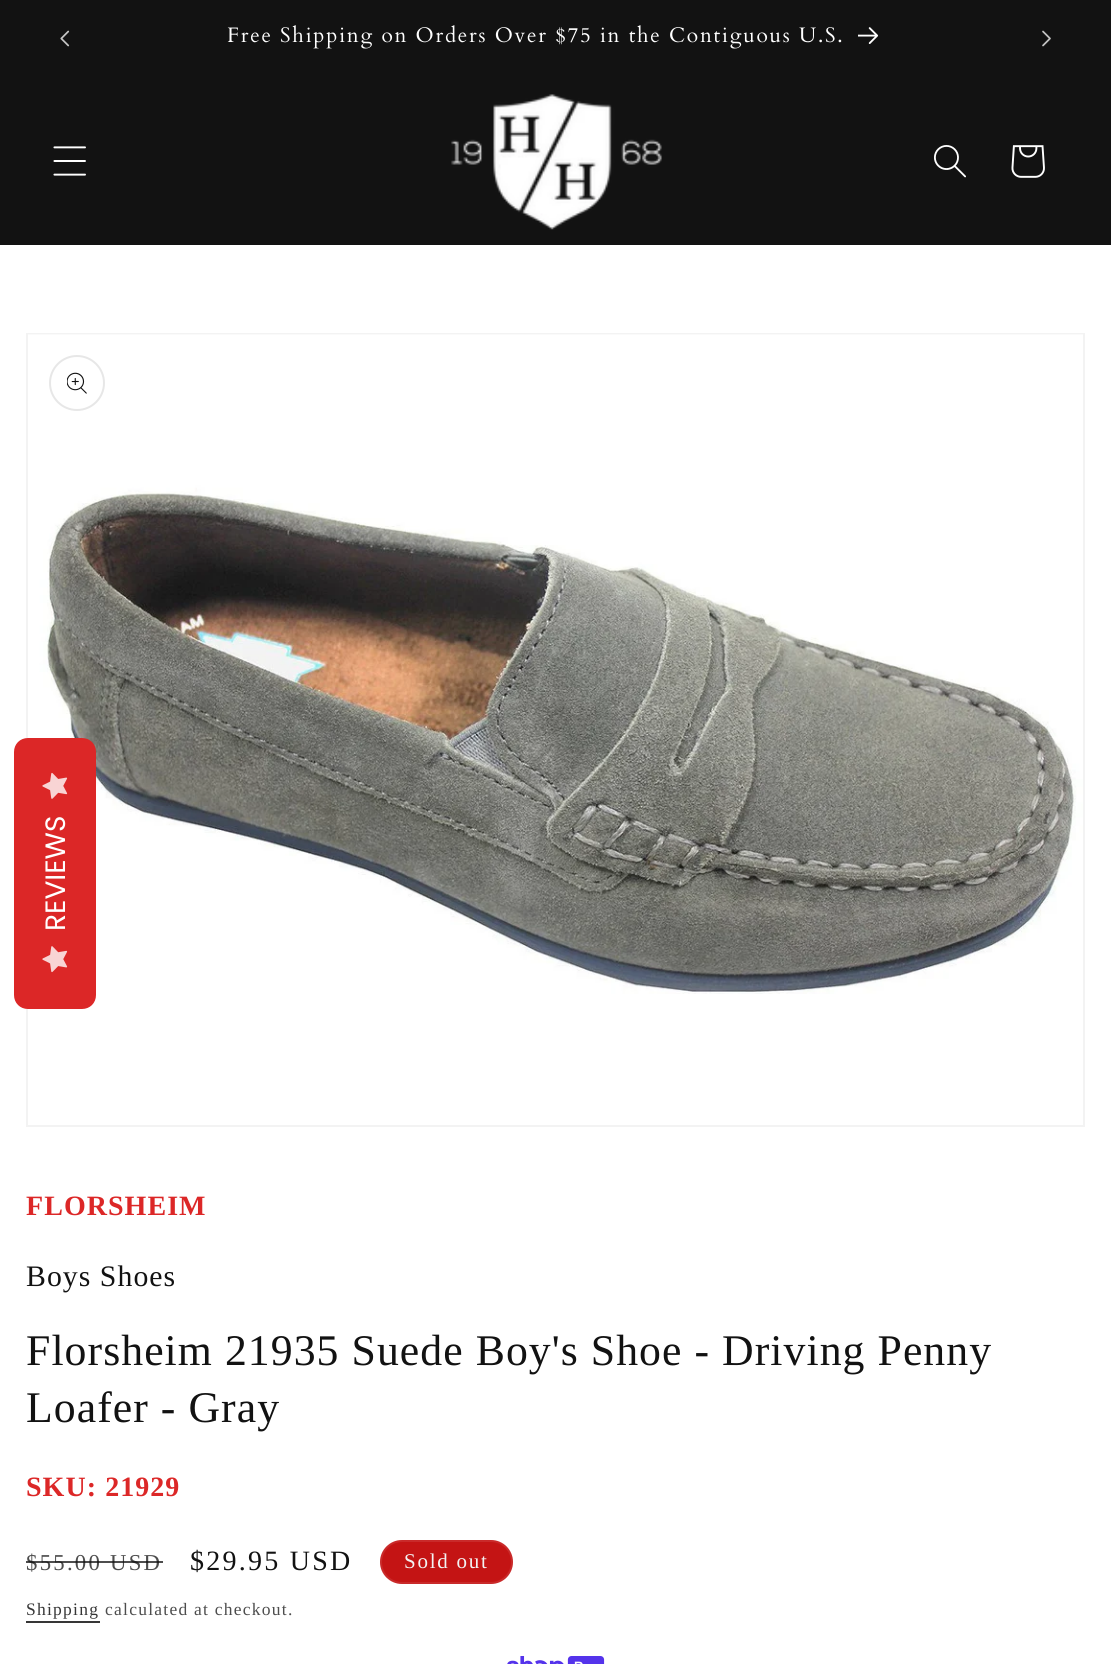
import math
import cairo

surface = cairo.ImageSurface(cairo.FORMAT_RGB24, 1111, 1664)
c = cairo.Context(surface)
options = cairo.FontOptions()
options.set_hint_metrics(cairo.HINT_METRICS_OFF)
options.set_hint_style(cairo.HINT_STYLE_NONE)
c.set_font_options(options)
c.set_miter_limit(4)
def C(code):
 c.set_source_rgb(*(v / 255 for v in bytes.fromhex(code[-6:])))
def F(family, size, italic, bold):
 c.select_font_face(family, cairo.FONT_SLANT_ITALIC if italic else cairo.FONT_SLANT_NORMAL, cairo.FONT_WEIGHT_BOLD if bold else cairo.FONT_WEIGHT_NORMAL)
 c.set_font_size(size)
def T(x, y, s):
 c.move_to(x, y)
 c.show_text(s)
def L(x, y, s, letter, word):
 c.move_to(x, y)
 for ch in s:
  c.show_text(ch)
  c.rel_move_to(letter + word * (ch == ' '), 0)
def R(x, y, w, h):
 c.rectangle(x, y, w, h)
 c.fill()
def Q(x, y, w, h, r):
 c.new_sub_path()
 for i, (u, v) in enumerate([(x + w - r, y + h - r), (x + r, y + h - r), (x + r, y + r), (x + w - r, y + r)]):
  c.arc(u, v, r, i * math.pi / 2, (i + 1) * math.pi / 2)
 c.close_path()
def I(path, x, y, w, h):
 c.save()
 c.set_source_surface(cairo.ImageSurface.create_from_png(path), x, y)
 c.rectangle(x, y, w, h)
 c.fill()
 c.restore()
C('ffffff')
c.paint()
C('121212')
R(0,0,1111,245)
I('1.png',60,30,10,17)
F('Cardo',21,0,0)
C('ffffff')
L(227,42,'Free Shipping on Orders Over $75 in the Contiguous U.S.',1.75,0)
I('2.png',858,27,21,17)
I('3.png',1042,30,9,17)
I('4.png',53,146,33,30)
I('5.png',451,94,211,136)
I('6.png',934,145,32,33)
I('7.png',1011,145,34,33)
c.rectangle(27,334,1057,792)
C('f3f3f3')
c.stroke()
I('10.png',28,334,1055,660)
C('dc2727')
c.new_path()
c.move_to(14,995)
c.line_to(14,752)
c.curve_to(14,744,20,738,28,738)
c.line_to(82,738)
c.curve_to(90,738,96,744,96,752)
c.line_to(96,995)
c.curve_to(96,1003,90,1009,82,1009)
c.line_to(28,1009)
c.curve_to(20,1009,14,1003,14,995)
c.close_path()
c.fill()
I('8.png',42,772,26,27)
F('Poppins',28,0,0)
C('ffffff')
c.save()
c.translate(65,931)
c.rotate(-90 * math.pi / 180)
T(0,0,'REVIEWS')
c.restore()
I('9.png',42,946,26,27)
c.arc(77,383,27,0,2 * math.pi)
C('e7e7e7')
c.stroke()
I('11.png',67,372,20,22)
F('Liberation Serif',28,0,1)
C('dc2727')
L(26,1215,'FLORSHEIM',1.05,0)
F('Liberation Serif',29.75,0,0)
C('121212')
L(26,1286,'Boys Shoes',1.05,0)
F('Liberation Serif',43.75,0,0)
L(26,1365,'Florsheim 21935 Suede Boy\'s Shoe - Driving Penny',1.05,0)
L(26,1422,'Loafer - Gray',1.05,0)
F('Liberation Serif',28,0,1)
C('dc2727')
L(26,1496,'SKU: 21929',1.05,0)
F('Liberation Serif',22.75,0,0)
C('4d4d4d')
L(26,1570,'$55.00 USD',2.25,0)
c.set_source_rgba(0.071,0.071,0.071,0.75)
R(26,1561,137,2)
F('Liberation Serif',28,0,0)
C('121212')
L(190,1570,'$29.95 USD',2.25,0)
C('c41414')
Q(380,1540,133,44,22)
c.fill()
Q(381,1541,131,42,21)
c.set_source_rgba(0.953,0.953,0.953,0.1)
c.stroke()
F('Liberation Serif',21,0,0)
C('f3f3f3')
L(404,1568,'Sold out',1.75,0)
F('Liberation Serif',17.5,0,0)
C('363636')
L(26,1615,'Shipping',1.25,0)
R(26,1621,74,2)
C('4d4d4d')
L(105,1615,'calculated at checkout.',1.25,0)
I('12.png',507,1656,98,8)
surface.write_to_png('o.png')
